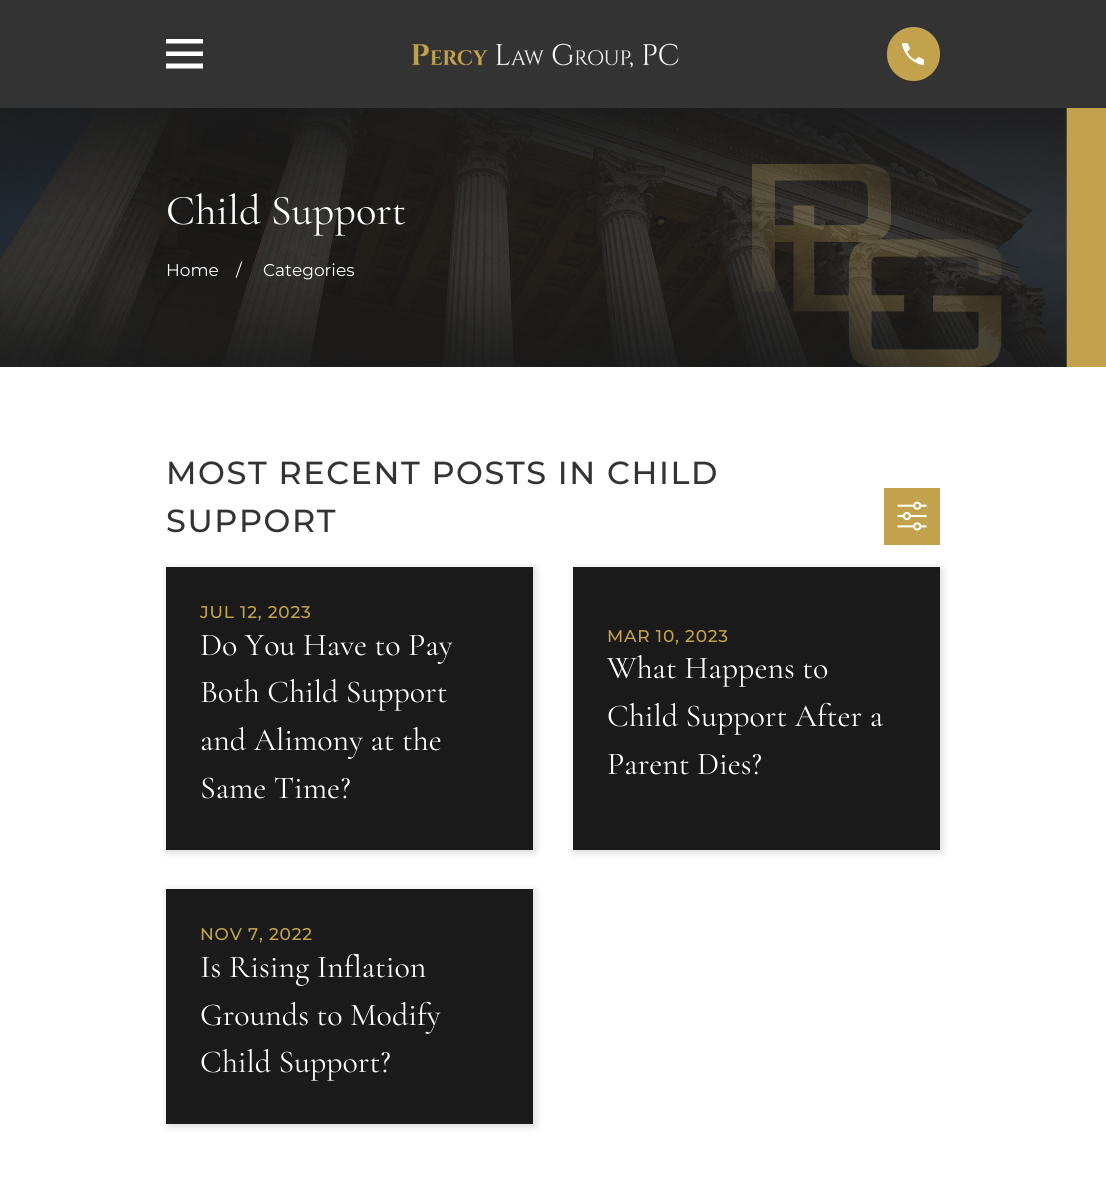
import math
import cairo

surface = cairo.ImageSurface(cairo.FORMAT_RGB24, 1106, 1192)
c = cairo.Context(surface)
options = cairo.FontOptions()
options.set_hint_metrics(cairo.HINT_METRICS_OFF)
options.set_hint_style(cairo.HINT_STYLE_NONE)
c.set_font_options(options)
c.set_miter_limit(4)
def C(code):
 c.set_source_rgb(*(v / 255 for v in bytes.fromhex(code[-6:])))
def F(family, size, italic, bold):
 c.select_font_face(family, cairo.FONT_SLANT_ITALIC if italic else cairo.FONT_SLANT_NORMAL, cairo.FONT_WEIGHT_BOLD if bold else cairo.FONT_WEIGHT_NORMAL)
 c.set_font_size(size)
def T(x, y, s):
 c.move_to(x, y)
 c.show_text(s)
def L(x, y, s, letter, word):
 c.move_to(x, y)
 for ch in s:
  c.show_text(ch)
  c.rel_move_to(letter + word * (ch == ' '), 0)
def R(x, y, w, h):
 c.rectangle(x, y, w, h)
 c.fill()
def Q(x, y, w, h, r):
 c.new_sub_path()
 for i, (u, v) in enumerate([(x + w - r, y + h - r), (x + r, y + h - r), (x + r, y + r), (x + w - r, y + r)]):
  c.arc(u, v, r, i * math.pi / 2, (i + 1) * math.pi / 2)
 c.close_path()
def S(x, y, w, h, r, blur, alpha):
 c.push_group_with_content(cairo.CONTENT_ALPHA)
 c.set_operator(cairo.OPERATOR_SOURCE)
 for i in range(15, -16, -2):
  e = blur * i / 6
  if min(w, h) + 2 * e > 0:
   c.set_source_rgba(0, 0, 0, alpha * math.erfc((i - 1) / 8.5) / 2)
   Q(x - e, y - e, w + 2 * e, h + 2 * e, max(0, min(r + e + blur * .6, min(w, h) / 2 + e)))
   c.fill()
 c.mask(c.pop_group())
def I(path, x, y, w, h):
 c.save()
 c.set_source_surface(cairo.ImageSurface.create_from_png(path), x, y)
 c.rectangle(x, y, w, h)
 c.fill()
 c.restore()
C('ffffff')
c.paint()
C('333333')
R(0,0,1106,108)
c.save()
c.rectangle(166,35,37,38)
c.clip()
C('ffffff')
c.new_path()
c.move_to(166,39)
c.line_to(166,43.5)
c.line_to(203.5,43.5)
c.line_to(203.5,39)
c.close_path()
c.move_to(166,51.5)
c.line_to(166,56)
c.line_to(203.5,56)
c.line_to(203.5,51.5)
c.close_path()
c.move_to(166,63.5)
c.line_to(166,68.5)
c.line_to(203.5,68.5)
c.line_to(203.5,63.5)
c.close_path()
c.fill()
c.restore()
I('1.png',411,43,268,25)
C('c2a24d')
Q(887,27,53,54,26.5)
c.fill()
I('2.png',902,43,22,22)
I('3.png',0,108,1106,259)
F('Cormorant Garamond',42.5,0,0)
C('ffffff')
T(166,224,'Child Support')
F('Montserrat',17,0,0)
T(166,276,'Home')
T(236,276,'/')
T(263,276,'Categories')
F('Montserrat Medium',31.9,0,0)
C('333333')
L(166,484,'MOST RECENT POSTS IN CHILD',1.6,0)
L(166,532,'SUPPORT',1.6,0)
C('c2a24d')
R(884,488,56,57)
I('4.png',897,501,30,30)
C('000000')
S(168,569,367,283,0,4.5,.16)
C('1a1a1a')
R(166,567,367,283)
F('Montserrat Medium',17,0,0)
C('c2a24d')
L(200,618,'JUL 12, 2023',.8,0)
F('Cormorant Garamond',31.9,0,0)
C('ffffff')
T(200,655,'Do You Have to Pay')
T(200,702,'Both Child Support')
T(200,750,'and Alimony at the')
T(200,798,'Same Time?')
C('000000')
S(575,569,367,283,0,4.5,.16)
C('1a1a1a')
R(573,567,367,283)
F('Montserrat Medium',17,0,0)
C('c2a24d')
L(607,642,'MAR 10, 2023',.8,0)
F('Cormorant Garamond',31.9,0,0)
C('ffffff')
T(607,678,'What Happens to')
T(607,726,'Child Support After a')
T(607,774,'Parent Dies?')
C('000000')
S(168,891,367,235,0,4.5,.16)
C('1a1a1a')
R(166,889,367,235)
F('Montserrat Medium',17,0,0)
C('c2a24d')
L(200,940,'NOV 7, 2022',.8,0)
F('Cormorant Garamond',31.9,0,0)
C('ffffff')
T(200,977,'Is Rising Inflation')
T(200,1025,'Grounds to Modify')
T(200,1072,'Child Support?')
surface.write_to_png('o.png')
